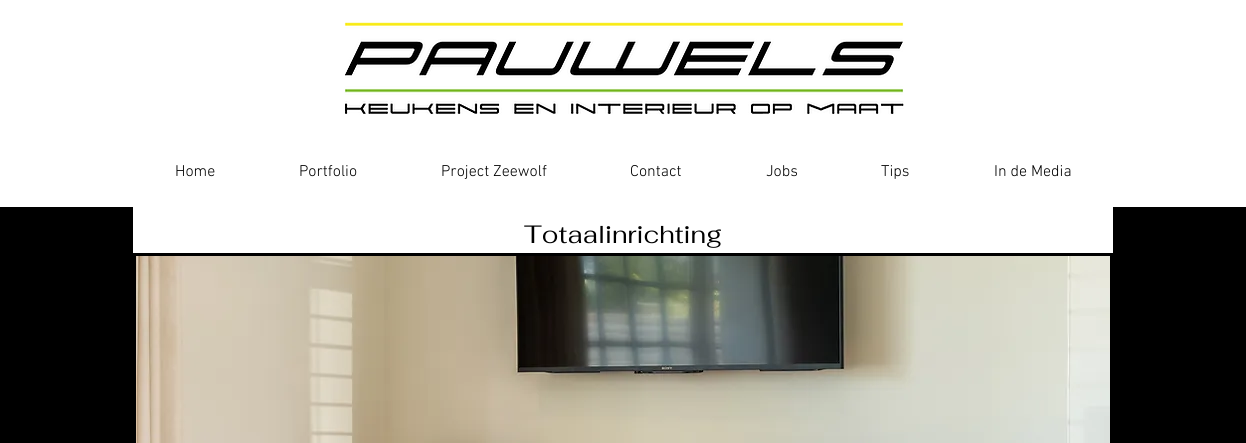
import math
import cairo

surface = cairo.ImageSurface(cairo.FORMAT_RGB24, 1246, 443)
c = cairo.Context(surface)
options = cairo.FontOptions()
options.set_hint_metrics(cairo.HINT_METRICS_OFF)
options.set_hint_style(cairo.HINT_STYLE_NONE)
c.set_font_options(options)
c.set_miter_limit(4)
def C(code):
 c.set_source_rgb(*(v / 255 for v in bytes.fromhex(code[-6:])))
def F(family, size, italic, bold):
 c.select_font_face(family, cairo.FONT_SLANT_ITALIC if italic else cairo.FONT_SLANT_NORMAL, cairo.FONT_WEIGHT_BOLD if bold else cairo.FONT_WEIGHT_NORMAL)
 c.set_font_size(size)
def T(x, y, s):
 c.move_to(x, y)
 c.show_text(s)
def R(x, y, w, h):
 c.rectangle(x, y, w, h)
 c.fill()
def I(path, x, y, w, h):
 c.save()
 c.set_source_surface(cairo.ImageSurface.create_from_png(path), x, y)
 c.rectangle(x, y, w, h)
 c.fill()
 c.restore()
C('000000')
c.paint()
C('ffffff')
R(0,0,1246,207)
I('1.png',344,22,560,93)
F('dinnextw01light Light',16,0,0)
C('000000')
T(175,176,'Home')
T(299,176,'Portfolio')
T(441,176,'Project Zeewolf')
T(630,176,'Contact')
T(766,176,'Jobs')
T(881,176,'Tips')
T(994,176,'In de Media')
C('ffffff')
R(133,207,980,46)
F('Fahkwang',25,0,0)
C('000000')
T(524,243,'Totaalinrichting')
I('2.png',136,256,974,187)
surface.write_to_png('o.png')
